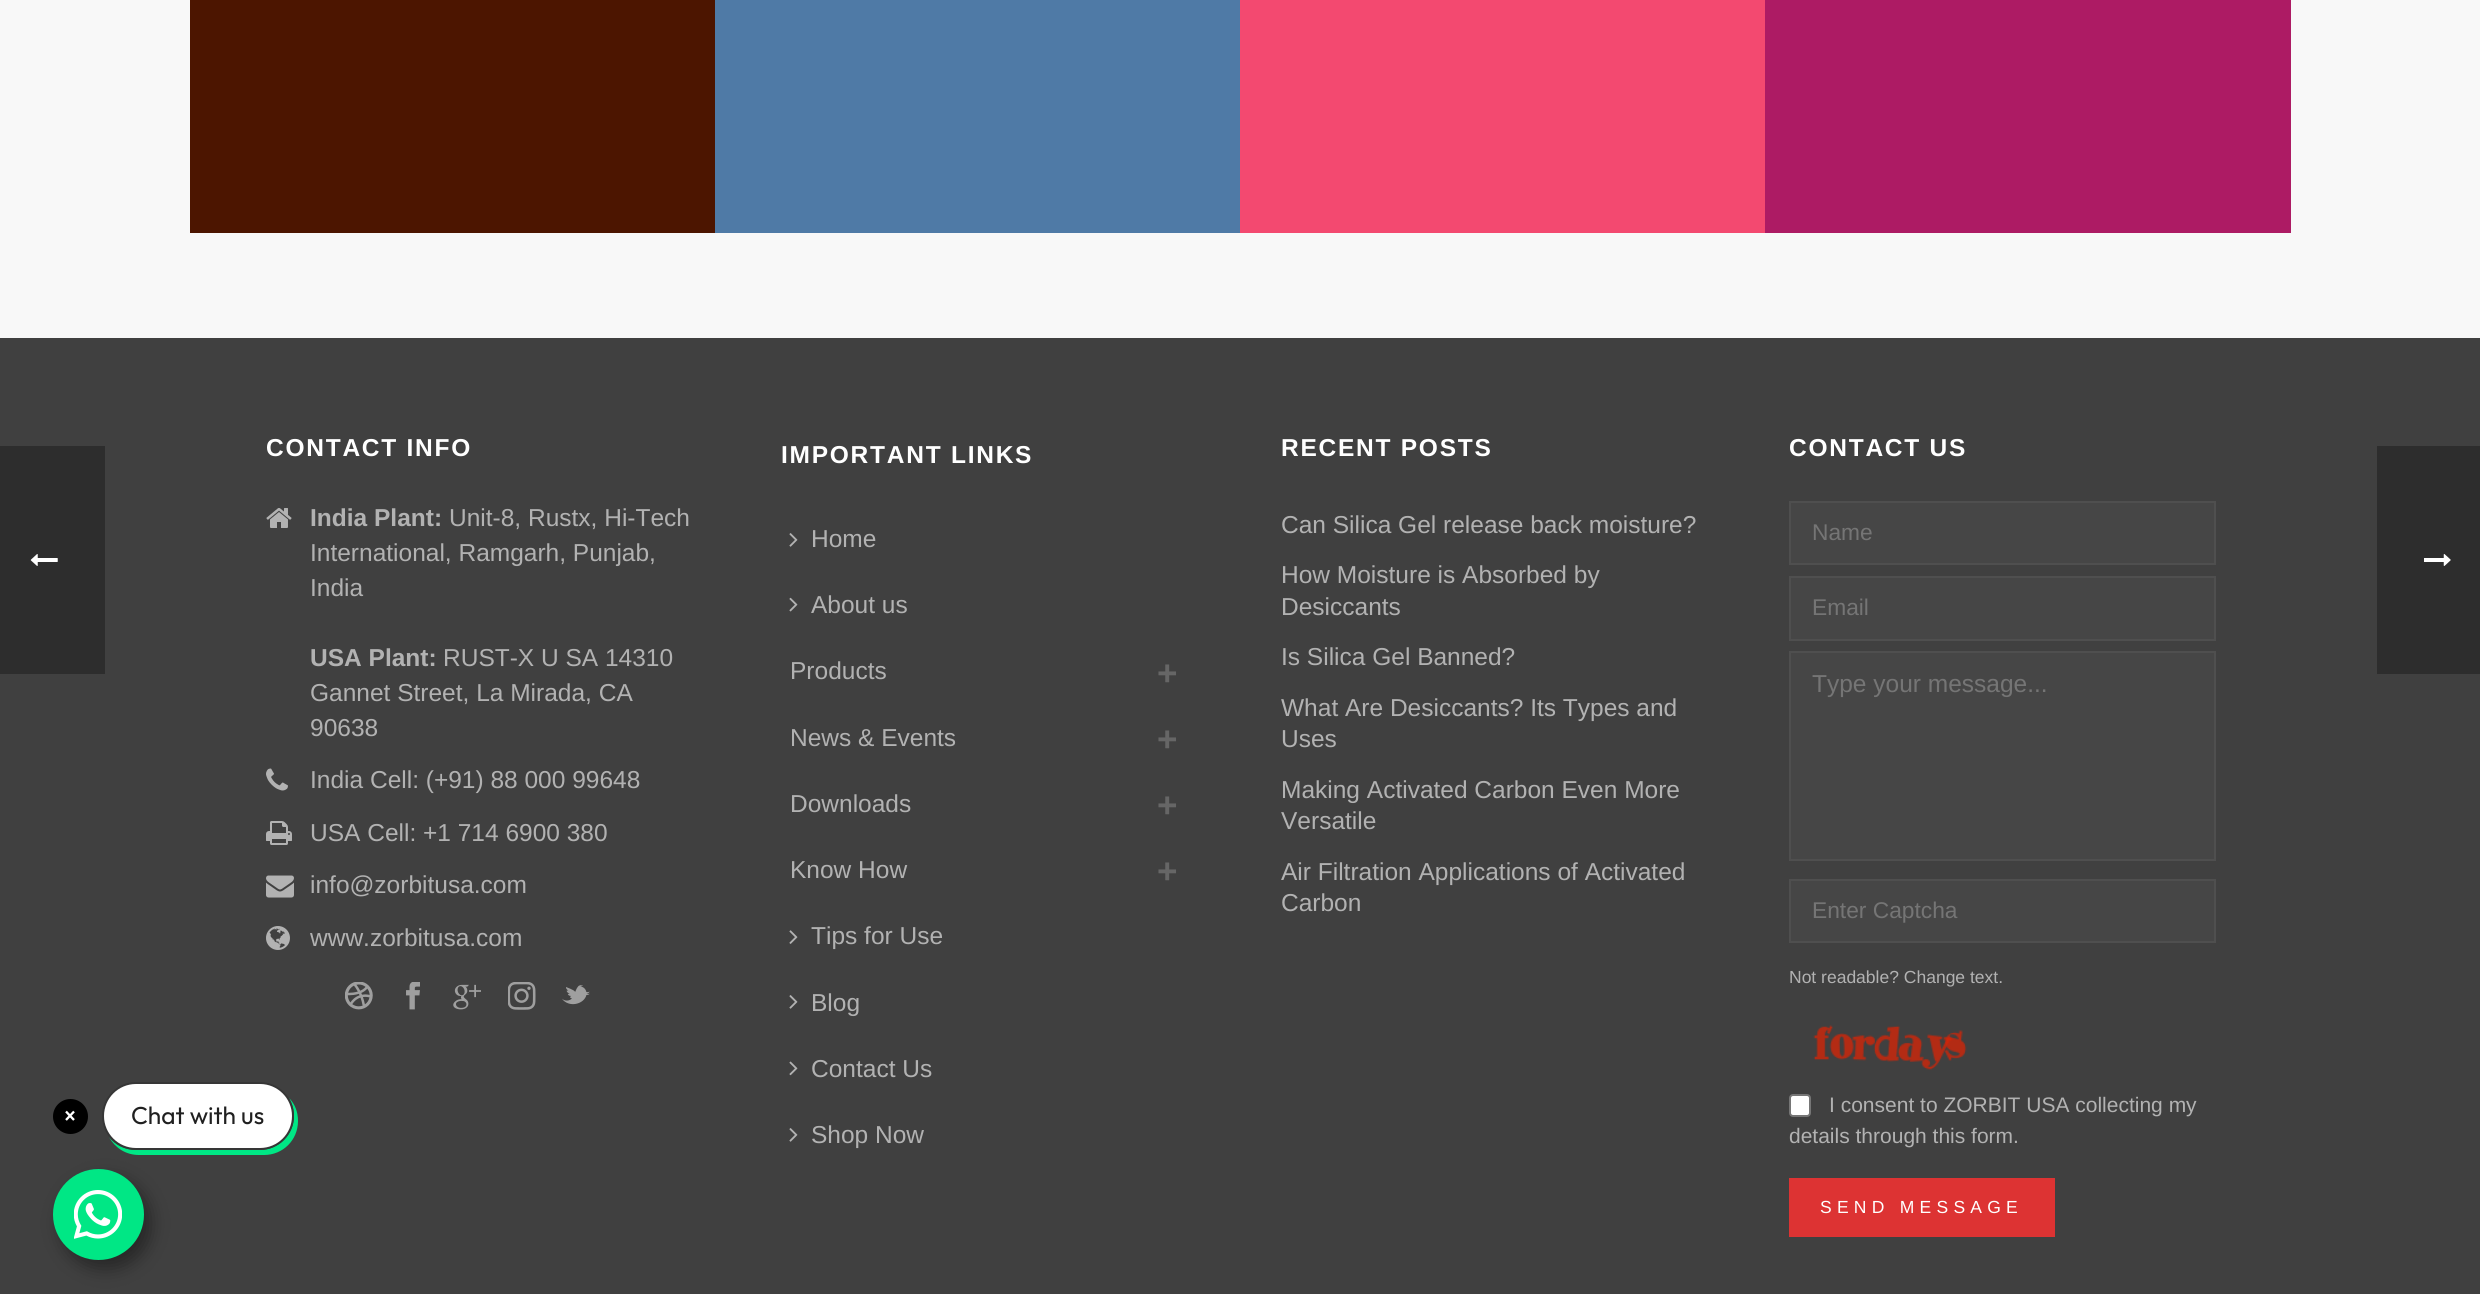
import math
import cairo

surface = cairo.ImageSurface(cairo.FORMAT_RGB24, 2480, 1294)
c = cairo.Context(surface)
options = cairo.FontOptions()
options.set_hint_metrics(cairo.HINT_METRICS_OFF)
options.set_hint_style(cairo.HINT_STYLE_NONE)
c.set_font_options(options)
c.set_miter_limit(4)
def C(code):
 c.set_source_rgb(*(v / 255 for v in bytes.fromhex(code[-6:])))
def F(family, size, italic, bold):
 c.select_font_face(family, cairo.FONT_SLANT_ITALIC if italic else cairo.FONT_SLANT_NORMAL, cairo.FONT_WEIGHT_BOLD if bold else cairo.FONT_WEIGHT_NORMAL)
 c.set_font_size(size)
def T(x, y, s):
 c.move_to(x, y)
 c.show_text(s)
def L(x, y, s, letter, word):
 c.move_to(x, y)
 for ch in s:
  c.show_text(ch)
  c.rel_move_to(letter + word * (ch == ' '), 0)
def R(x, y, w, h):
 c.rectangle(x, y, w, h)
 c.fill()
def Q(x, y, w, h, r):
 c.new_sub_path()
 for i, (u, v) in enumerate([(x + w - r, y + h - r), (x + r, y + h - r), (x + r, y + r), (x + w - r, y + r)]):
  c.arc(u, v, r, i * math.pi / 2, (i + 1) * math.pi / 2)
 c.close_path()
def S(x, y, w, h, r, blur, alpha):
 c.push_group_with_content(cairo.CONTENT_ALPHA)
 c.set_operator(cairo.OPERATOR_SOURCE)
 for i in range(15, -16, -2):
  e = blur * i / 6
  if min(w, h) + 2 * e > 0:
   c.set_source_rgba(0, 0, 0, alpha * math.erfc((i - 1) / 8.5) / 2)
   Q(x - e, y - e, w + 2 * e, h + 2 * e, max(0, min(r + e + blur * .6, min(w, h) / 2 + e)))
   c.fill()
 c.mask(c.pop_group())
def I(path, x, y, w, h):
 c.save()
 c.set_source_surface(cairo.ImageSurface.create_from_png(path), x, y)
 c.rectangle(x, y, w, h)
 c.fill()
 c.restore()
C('404040')
c.paint()
C('2d2d2d')
R(0,446,105,228)
I('1.png',30,554,28,12)
C('f8f8f8')
R(0,0,2480,338)
C('4c1500')
R(190,0,525,233)
C('4f7aa6')
R(715,0,525,233)
C('f34970')
R(1240,0,525,233)
C('ad1b64')
R(1765,0,526,233)
F('Liberation Sans',24.5,0,1)
C('ffffff')
L(266,456,'CONTACT INFO',1.75,0)
I('2.png',266,508,26,20)
C('b2b2b2')
T(310,526,'India Plant:')
F('Liberation Sans',24.5,0,0)
T(449,526,'Unit-8, Rustx, Hi-Tech')
T(310,561,'International, Ramgarh, Punjab,')
T(310,596,'India')
F('Liberation Sans',24.5,0,1)
T(310,666,'USA Plant:')
F('Liberation Sans',24.5,0,0)
T(443,666,'RUST-X U SA 14310')
T(310,701,'Gannet Street, La Mirada, CA')
T(310,736,'90638')
I('3.png',266,768,22,23)
T(310,788,'India Cell: (+91) 88 000 99648')
I('4.png',266,821,26,24)
T(310,841,'USA Cell: +1 714 6900 380')
I('5.png',266,875,28,23)
T(310,893,'info@zorbitusa.com')
I('6.png',266,926,24,24)
T(310,946,'www.zorbitusa.com')
I('7.png',345,982,28,28)
I('8.png',406,982,14,28)
I('9.png',453,984,28,26)
I('10.png',508,982,28,28)
I('11.png',562,985,28,20)
F('Liberation Sans',24.5,0,1)
C('ffffff')
L(781,463,'IMPORTANT LINKS',1.75,0)
I('12.png',789,533,9,14)
F('Liberation Sans',24.5,0,0)
C('b2b2b2')
T(811,547,'Home')
I('13.png',789,597,9,15)
T(811,613,'About us')
T(790,679,'Products')
F('Liberation Sans',35,0,1)
C('666666')
T(1157,685,'+')
F('Liberation Sans',24.5,0,0)
C('b2b2b2')
T(790,746,'News & Events')
F('Liberation Sans',35,0,1)
C('666666')
T(1157,751,'+')
F('Liberation Sans',24.5,0,0)
C('b2b2b2')
T(790,812,'Downloads')
F('Liberation Sans',35,0,1)
C('666666')
T(1157,817,'+')
F('Liberation Sans',24.5,0,0)
C('b2b2b2')
T(790,878,'Know How')
F('Liberation Sans',35,0,1)
C('666666')
T(1157,883,'+')
I('14.png',789,930,9,14)
F('Liberation Sans',24.5,0,0)
C('b2b2b2')
T(811,944,'Tips for Use')
I('12.png',789,995,9,14)
T(811,1011,'Blog')
I('15.png',789,1061,9,15)
T(811,1077,'Contact Us')
I('12.png',789,1128,9,14)
T(811,1143,'Shop Now')
F('Liberation Sans',24.5,0,1)
C('ffffff')
L(1281,456,'RECENT POSTS',1.75,0)
F('Liberation Sans',24.5,0,0)
C('b2b2b2')
T(1281,533,'Can Silica Gel release back moisture?')
T(1281,583,'How Moisture is Absorbed by')
T(1281,615,'Desiccants')
T(1281,665,'Is Silica Gel Banned?')
T(1281,716,'What Are Desiccants? Its Types and')
T(1281,747,'Uses')
T(1281,798,'Making Activated Carbon Even More')
T(1281,829,'Versatile')
T(1281,880,'Air Filtration Applications of Activated')
T(1281,911,'Carbon')
F('Liberation Sans',24.5,0,1)
C('ffffff')
L(1789,456,'CONTACT US',1.75,0)
C('464646')
c.rectangle(1790,502,425,62)
c.fill_preserve()
C('4f4f4f')
c.stroke()
F('Liberation Sans',22.75,0,0)
C('757575')
T(1812,540,'Name')
C('464646')
c.rectangle(1790,577,425,63)
c.fill_preserve()
C('4f4f4f')
c.stroke()
C('757575')
T(1812,615,'Email')
C('464646')
c.rectangle(1790,652,425,208)
c.fill_preserve()
C('4f4f4f')
c.stroke()
F('Liberation Sans',24.5,0,0)
C('757575')
T(1812,692,'Type your message...')
C('464646')
c.rectangle(1790,880,425,62)
c.fill_preserve()
C('4f4f4f')
c.stroke()
F('Liberation Sans',22.75,0,0)
C('757575')
T(1812,918,'Enter Captcha')
F('Liberation Sans',17.5,0,0)
C('b2b2b2')
T(1789,983,'Not readable? Change text.')
I('16.png',1813,1025,154,45)
C('ffffff')
Q(1790,1095,20,21,3)
c.fill_preserve()
C('767676')
c.stroke()
F('Liberation Sans',21,0,0)
C('b2b2b2')
T(1829,1112,'I consent to ZORBIT USA collecting my')
T(1789,1143,'details through this form.')
C('dd3333')
R(1789,1178,266,59)
F('Liberation Sans',17.5,0,0)
C('ffffff')
L(1820,1213,'SEND MESSAGE',5.25,0)
C('2d2d2d')
R(2377,446,103,228)
I('17.png',2424,554,27,12)
C('000000')
c.arc(70.5,1116.5,17.5,0,2 * math.pi)
c.fill()
c.new_path()
c.move_to(66,1111.5)
c.line_to(74,1120)
c.move_to(66,1120)
c.line_to(74,1111.5)
C('ffffff')
c.set_line_width(2.3)
c.stroke()
C('000000')
S(60,1178,91,91,45.5,9,.4)
C('00e785')
c.new_path()
c.move_to(109,1137)
c.curve_to(115,1148,126,1155,139,1155)
c.line_to(264,1155)
c.curve_to(283,1155,298,1140,298,1121)
c.curve_to(298,1112,295,1104,289,1098)
c.curve_to(292,1103,294,1109,294,1116)
c.curve_to(294,1134,279,1150,260,1150)
c.line_to(136,1150)
c.curve_to(125,1150,115,1145,109,1137)
c.close_path()
c.fill()
C('ffffff')
Q(103,1083,190,66,33)
c.fill_preserve()
C('363636')
c.set_line_width(2)
c.stroke()
F('Outfit',24.5,0,0)
C('202020')
T(131,1124,'Chat with us')
C('00e785')
c.new_path()
c.arc(98.5,1214.5,45.5,0,2 * math.pi)
c.fill()
I('18.png',74,1190,48,49)
surface.write_to_png('o.png')
